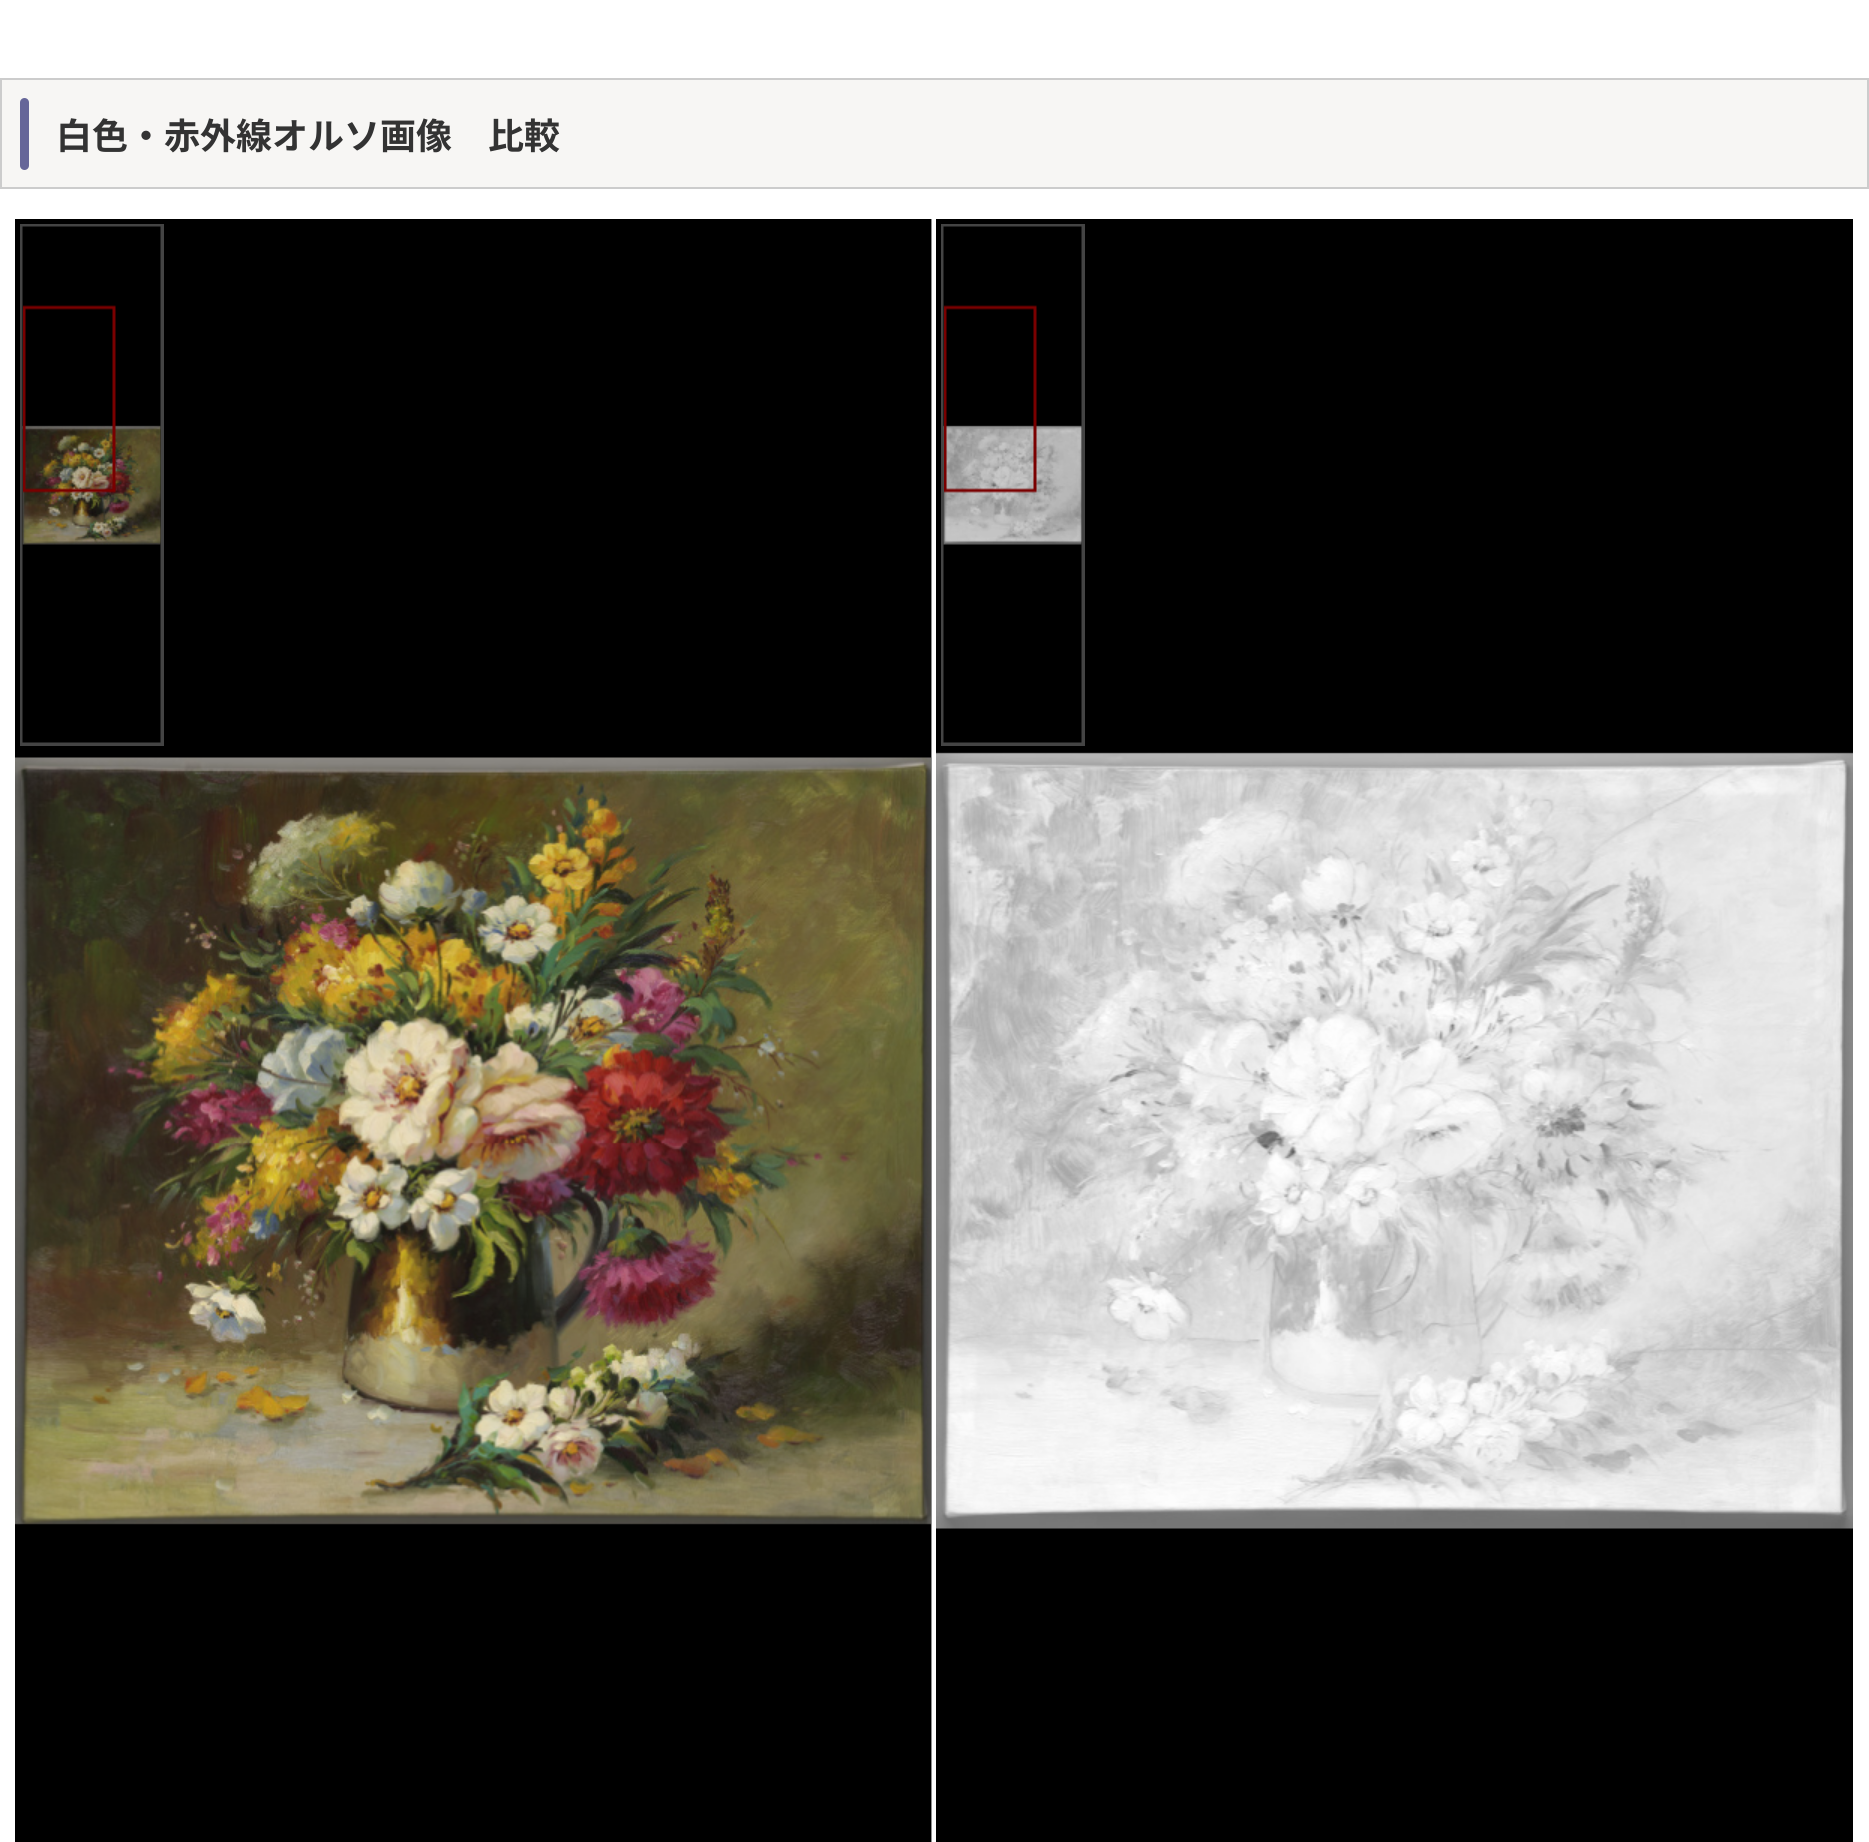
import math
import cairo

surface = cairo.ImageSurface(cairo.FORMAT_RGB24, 1869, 1842)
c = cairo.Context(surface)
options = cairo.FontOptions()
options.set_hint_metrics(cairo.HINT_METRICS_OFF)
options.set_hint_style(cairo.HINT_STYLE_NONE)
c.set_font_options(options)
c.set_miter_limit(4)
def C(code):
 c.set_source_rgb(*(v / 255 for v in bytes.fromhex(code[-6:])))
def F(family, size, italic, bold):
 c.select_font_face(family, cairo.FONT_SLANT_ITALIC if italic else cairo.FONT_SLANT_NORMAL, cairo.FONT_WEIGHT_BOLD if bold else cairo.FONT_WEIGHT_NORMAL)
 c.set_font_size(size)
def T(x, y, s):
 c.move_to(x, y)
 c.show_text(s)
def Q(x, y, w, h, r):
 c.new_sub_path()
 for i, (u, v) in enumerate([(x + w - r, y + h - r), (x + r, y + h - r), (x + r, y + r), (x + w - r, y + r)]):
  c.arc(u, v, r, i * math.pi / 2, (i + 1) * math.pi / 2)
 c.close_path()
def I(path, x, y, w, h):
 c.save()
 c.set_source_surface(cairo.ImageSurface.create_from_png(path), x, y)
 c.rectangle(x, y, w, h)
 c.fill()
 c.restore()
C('ffffff')
c.paint()
C('f7f6f4')
c.rectangle(1,79,1867,109)
c.fill_preserve()
C('cccccc')
c.stroke()
C('666699')
Q(20,98,9,72,4.5)
c.fill()
F('Noto Sans JP',36,0,1)
C('333333')
T(56,149,'白色・赤外線オルソ画像　比較')
I('1.png',15,219,917,1623)
I('2.png',936,219,917,1623)
surface.write_to_png('o.png')
